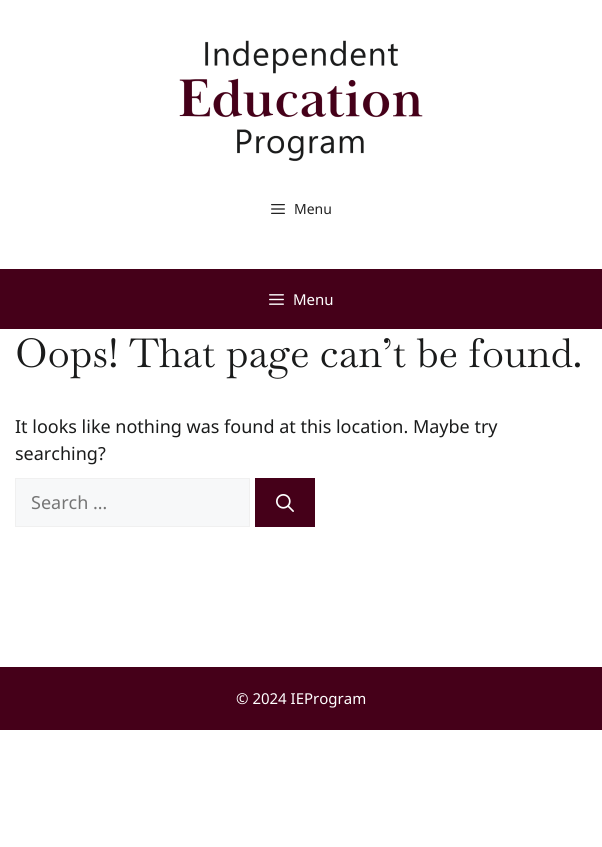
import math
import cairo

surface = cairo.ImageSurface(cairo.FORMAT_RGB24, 602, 847)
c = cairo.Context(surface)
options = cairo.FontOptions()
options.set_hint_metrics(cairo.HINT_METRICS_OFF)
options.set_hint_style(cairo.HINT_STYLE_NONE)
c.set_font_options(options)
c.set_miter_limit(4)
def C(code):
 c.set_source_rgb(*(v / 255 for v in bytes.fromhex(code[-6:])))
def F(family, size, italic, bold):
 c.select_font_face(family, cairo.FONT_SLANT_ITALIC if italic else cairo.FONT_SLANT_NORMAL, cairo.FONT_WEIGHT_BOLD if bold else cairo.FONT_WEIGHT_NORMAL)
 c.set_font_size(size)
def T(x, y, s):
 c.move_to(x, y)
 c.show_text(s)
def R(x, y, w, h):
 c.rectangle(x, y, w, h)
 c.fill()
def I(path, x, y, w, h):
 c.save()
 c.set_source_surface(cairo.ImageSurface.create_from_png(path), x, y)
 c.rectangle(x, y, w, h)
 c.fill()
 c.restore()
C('ffffff')
c.paint()
I('1.png',179,40,244,122)
I('2.png',271,204,14,10)
F('Noto Sans',14,0,0)
C('222222')
T(294,214,'Menu')
C('450019')
R(0,269,602,60)
I('3.png',269,294,15,11)
F('Noto Sans',15,0,0)
C('ffffff')
T(293,305,'Menu')
F('Baskervville',40,0,0)
C('1a1b1b')
T(15,367,'Oops! That page can’t be found.')
F('Noto Sans',18,0,0)
T(15,433,'It looks like nothing was found at this location. Maybe try')
T(15,460,'searching?')
C('f7f8f9')
c.rectangle(15.5,478.5,234,48)
c.fill_preserve()
C('f0f0f0')
c.set_line_width(1)
c.stroke()
C('757575')
T(31,509,'Search …')
C('450019')
R(255,478,60,49)
I('4.png',276,494,18,18)
R(0,667,602,63)
F('Noto Sans',15,0,0)
C('ffffff')
T(236,704,'© 2024 IEProgram')
surface.write_to_png('o.png')
